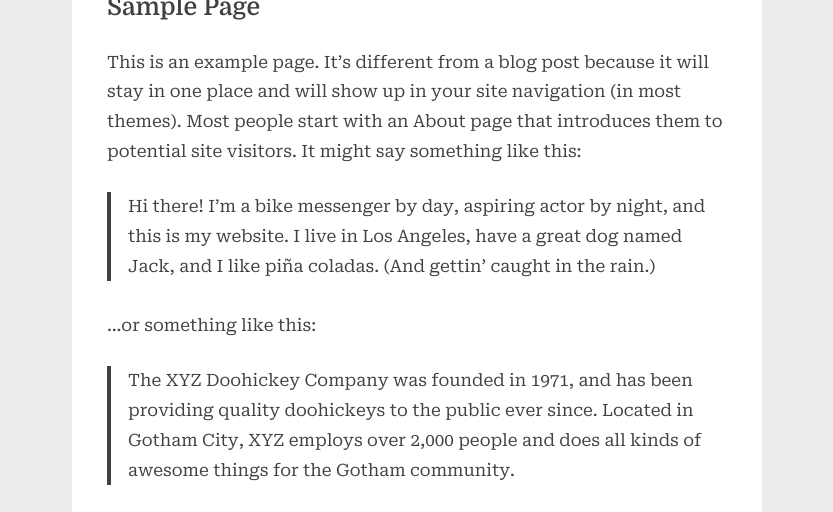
import math
import cairo

surface = cairo.ImageSurface(cairo.FORMAT_RGB24, 833, 512)
c = cairo.Context(surface)
options = cairo.FontOptions()
options.set_hint_metrics(cairo.HINT_METRICS_OFF)
options.set_hint_style(cairo.HINT_STYLE_NONE)
c.set_font_options(options)
c.set_miter_limit(4)
def C(code):
 c.set_source_rgb(*(v / 255 for v in bytes.fromhex(code[-6:])))
def F(family, size, italic, bold):
 c.select_font_face(family, cairo.FONT_SLANT_ITALIC if italic else cairo.FONT_SLANT_NORMAL, cairo.FONT_WEIGHT_BOLD if bold else cairo.FONT_WEIGHT_NORMAL)
 c.set_font_size(size)
def T(x, y, s):
 c.move_to(x, y)
 c.show_text(s)
def R(x, y, w, h):
 c.rectangle(x, y, w, h)
 c.fill()
C('ededed')
c.paint()
C('ffffff')
R(72,0,690,512)
F('Domine SemiBold',24.75,0,0)
C('404040')
T(107,15,'Sample Page')
F('Roboto Serif',17,0,0)
T(107,68,'This is an example page. It’s different from a blog post because it will')
T(107,97,'stay in one place and will show up in your site navigation (in most')
T(107,127,'themes). Most people start with an About page that introduces them to')
T(107,157,'potential site visitors. It might say something like this:')
R(107,192,4,89)
T(128,212,'Hi there! I’m a bike messenger by day, aspiring actor by night, and')
T(128,242,'this is my website. I live in Los Angeles, have a great dog named')
T(128,272,'Jack, and I like piña coladas. (And gettin’ caught in the rain.)')
T(107,331,'…or something like this:')
R(107,366,4,119)
T(128,386,'The XYZ Doohickey Company was founded in 1971, and has been')
T(128,416,'providing quality doohickeys to the public ever since. Located in')
T(128,446,'Gotham City, XYZ employs over 2,000 people and does all kinds of')
T(128,476,'awesome things for the Gotham community.')
surface.write_to_png('o.png')
